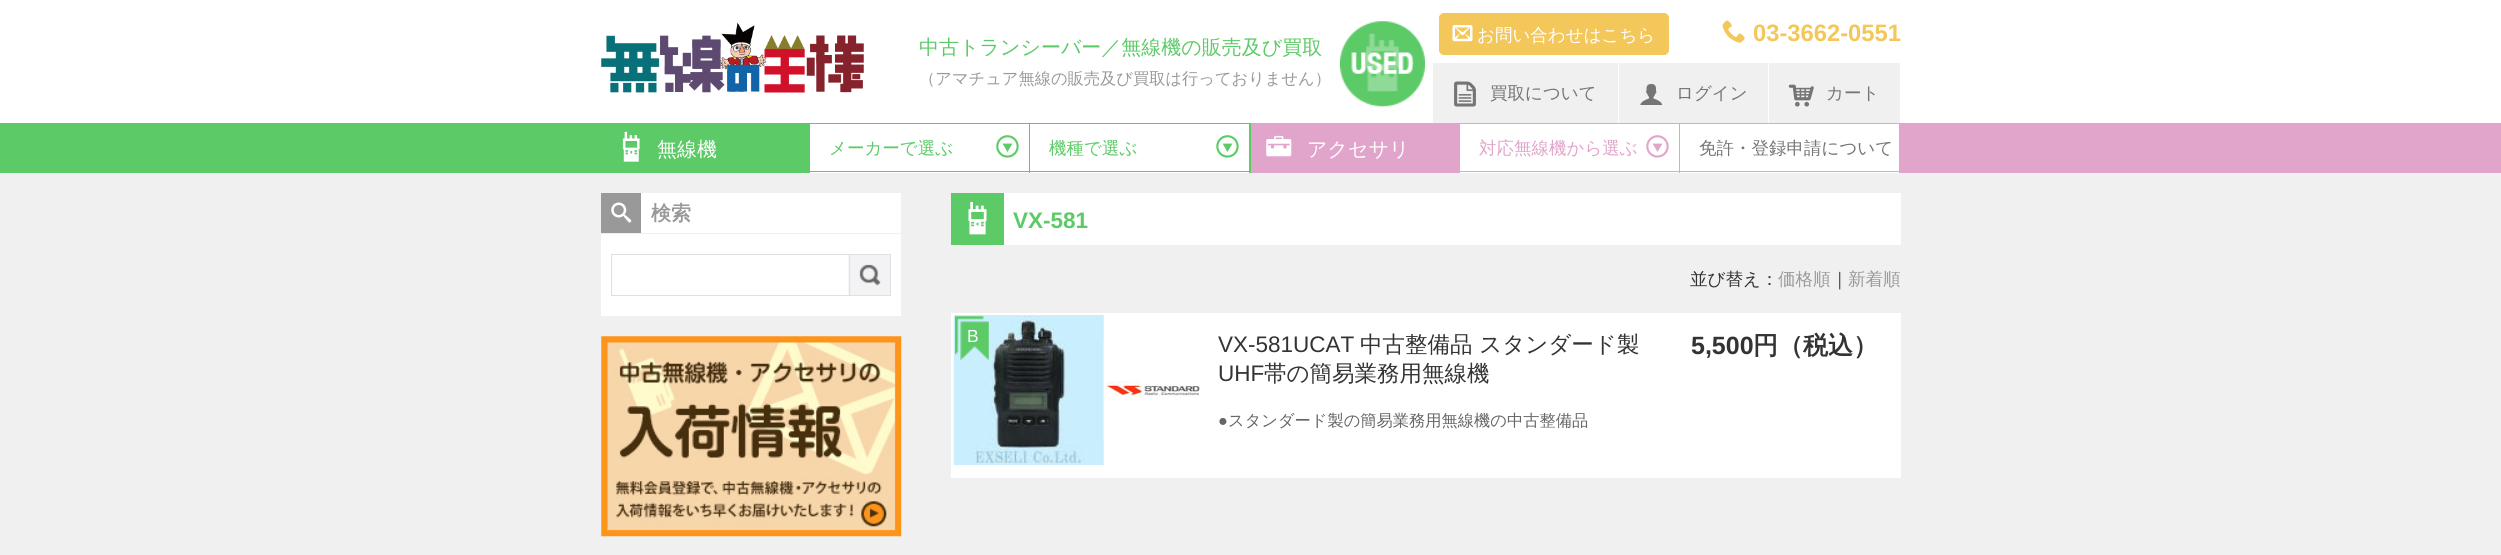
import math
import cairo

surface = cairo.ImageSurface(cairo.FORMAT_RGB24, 2501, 555)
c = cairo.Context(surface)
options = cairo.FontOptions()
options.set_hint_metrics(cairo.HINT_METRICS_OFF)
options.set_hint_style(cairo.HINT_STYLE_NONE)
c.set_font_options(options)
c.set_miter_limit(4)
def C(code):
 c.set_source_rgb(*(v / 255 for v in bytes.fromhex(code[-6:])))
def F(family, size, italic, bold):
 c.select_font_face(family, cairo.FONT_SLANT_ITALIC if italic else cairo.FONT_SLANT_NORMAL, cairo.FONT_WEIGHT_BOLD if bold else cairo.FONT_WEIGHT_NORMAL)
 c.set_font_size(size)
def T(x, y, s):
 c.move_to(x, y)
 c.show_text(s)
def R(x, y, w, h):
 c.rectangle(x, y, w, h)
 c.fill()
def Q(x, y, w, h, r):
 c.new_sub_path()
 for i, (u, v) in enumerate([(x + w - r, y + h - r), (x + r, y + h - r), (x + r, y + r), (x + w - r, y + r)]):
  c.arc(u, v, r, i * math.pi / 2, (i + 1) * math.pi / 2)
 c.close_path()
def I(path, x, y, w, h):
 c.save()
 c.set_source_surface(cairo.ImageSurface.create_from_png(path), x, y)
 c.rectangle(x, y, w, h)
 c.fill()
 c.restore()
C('ffffff')
c.paint()
I('1.png',601,22,263,71)
C('f3c759')
Q(1439.5,13.5,229,41,4.5)
c.fill_preserve()
c.set_line_width(1)
c.stroke()
I('2.png',1452,25,21,17)
F('WenQuanYi Zen Hei Medium',17.5,0,0)
C('ffffff')
T(1477,41,'お問い合わせはこちら')
I('3.png',1722,20,23,23)
F('Liberation Sans',23.75,0,1)
C('f3c759')
T(1753,41,'03-3662-0551')
I('4.png',1340,21,85,86)
F('WenQuanYi Zen Hei Medium',20,0,0)
C('5dca68')
T(919,54,'中古トランシーバー／無線機の販売及び買取')
F('WenQuanYi Zen Hei Medium',16.25,0,0)
C('999999')
T(919,84,'（アマチュア無線の販売及び買取は行っておりません）')
C('f0f0f0')
R(1433,63,185,60)
I('5.png',1454,81,22,26)
F('WenQuanYi Zen Hei Medium',17.5,0,0)
C('757575')
T(1490,99,'買取について')
C('f0f0f0')
R(1619,63,149,60)
I('6.png',1640,83,23,22)
C('757575')
T(1676,99,'ログイン')
C('f0f0f0')
R(1769,63,131,60)
I('7.png',1788,84,26,23)
C('757575')
T(1826,99,'カート')
C('5dca68')
R(0,123,1251,50)
C('e1a5cb')
R(1251,123,1250,50)
I('8.png',622,131,18,31)
F('WenQuanYi Zen Hei Medium',20,0,0)
C('ffffff')
T(657,156,'無線機')
R(810,124,219,49)
C('5dca68')
R(810,171,220,1)
F('WenQuanYi Zen Hei Medium',17.5,0,0)
T(829,154,'メーカーで選ぶ')
I('9.png',996,135,23,23)
C('ffffff')
R(1030,124,219,49)
C('5dca68')
R(1030,171,220,1)
T(1049,154,'機種で選ぶ')
I('9.png',1216,135,23,23)
I('10.png',1266,135,26,22)
F('WenQuanYi Zen Hei Medium',20,0,0)
C('ffffff')
T(1307,156,'アクセサリ')
R(1460,124,219,49)
C('e1a5cb')
R(1460,171,220,1)
F('WenQuanYi Zen Hei Medium',17.5,0,0)
T(1479,154,'対応無線機から選ぶ')
I('11.png',1646,135,23,23)
C('ffffff')
R(1680,124,219,49)
C('e1a5cb')
R(1680,171,220,1)
C('757575')
T(1699,154,'免許・登録申請について')
C('f0f0f0')
R(0,173,2501,382)
C('ffffff')
R(641,193,260,40)
C('999999')
R(601,193,40,40)
I('12.png',611,202,21,21)
F('WenQuanYi Zen Hei',20,0,1)
T(651,220,'検索')
C('ffffff')
R(601,234,300,82)
c.rectangle(611.5,254.5,279,41)
C('e0e0e0')
c.stroke()
I('13.png',848,255,42,40)
I('14.png',601,336,301,201)
C('ffffff')
R(1004,193,897,52)
C('5dca68')
R(951,193,53,52)
I('15.png',968,202,19,33)
F('Liberation Sans',22.5,0,1)
T(1013,228,'VX-581')
F('WenQuanYi Zen Hei Medium',17.5,0,0)
C('333333')
T(1690,285,'並び替え：')
C('999999')
T(1778,285,'価格順')
C('333333')
T(1831,285,'｜')
C('999999')
T(1848,285,'新着順')
C('ffffff')
R(951,313,950,165)
I('16.png',953,315,151,150)
I('17.png',955,316,34,44)
F('Liberation Sans',17.5,0,0)
T(967,342,'B')
I('18.png',1103,340,97,100)
F('Liberation Sans',22.5,0,0)
C('333333')
T(1218,352,'VX-581UCAT')
F('WenQuanYi Zen Hei Medium',22.5,0,0)
T(1360,352,'中古整備品 スタンダード製')
F('Liberation Sans',22.5,0,0)
T(1218,381,'UHF')
F('WenQuanYi Zen Hei Medium',22.5,0,0)
T(1264,381,'帯の簡易業務用無線機')
F('Liberation Sans',25,0,1)
T(1691,354,'5,500')
F('WenQuanYi Zen Hei',25,0,1)
T(1753,354,'円（税込）')
F('Liberation Sans',16.25,0,0)
C('666666')
T(1218,426,'●')
F('WenQuanYi Zen Hei Medium',16.25,0,0)
T(1228,426,'スタンダード製の簡易業務用無線機の中古整備品')
surface.write_to_png('o.png')
